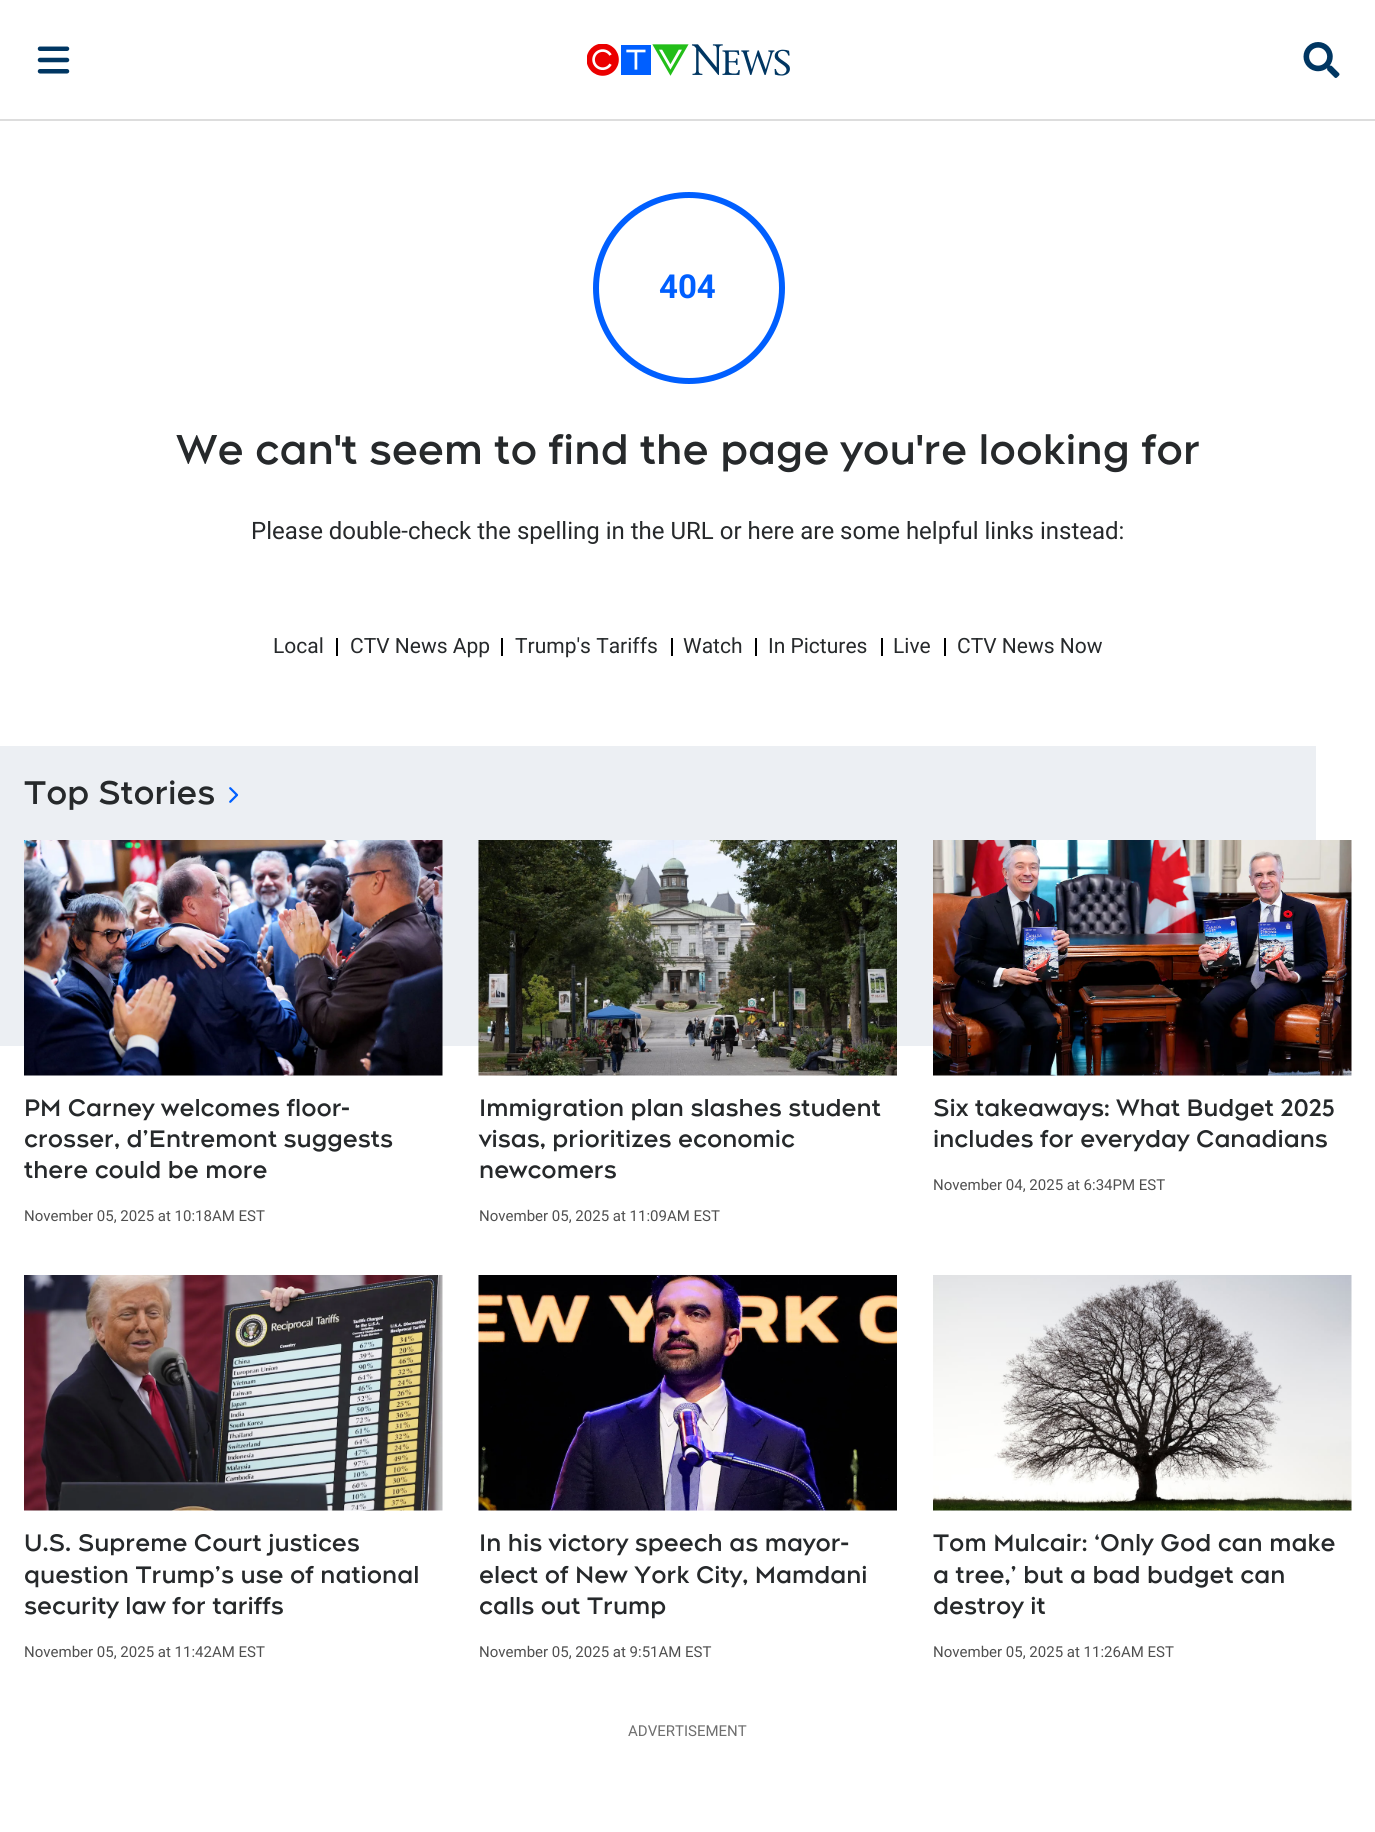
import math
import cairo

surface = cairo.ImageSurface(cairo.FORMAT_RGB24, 1375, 1832)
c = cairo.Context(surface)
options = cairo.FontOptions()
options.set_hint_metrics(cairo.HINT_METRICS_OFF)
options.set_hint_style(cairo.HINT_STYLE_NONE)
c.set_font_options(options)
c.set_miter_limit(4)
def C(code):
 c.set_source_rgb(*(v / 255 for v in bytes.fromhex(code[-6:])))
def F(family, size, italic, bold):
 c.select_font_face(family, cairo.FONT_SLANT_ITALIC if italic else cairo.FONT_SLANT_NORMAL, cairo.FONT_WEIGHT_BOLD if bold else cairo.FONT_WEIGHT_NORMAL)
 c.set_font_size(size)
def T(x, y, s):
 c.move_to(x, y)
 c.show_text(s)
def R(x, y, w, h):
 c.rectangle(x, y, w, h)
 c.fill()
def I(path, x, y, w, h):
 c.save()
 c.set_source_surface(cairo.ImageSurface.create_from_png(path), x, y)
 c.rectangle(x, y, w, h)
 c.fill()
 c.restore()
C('ffffff')
c.paint()
C('dddddd')
R(0,119,1375,2)
I('1.png',37,46,33,28)
I('2.png',587,44,203,32)
I('3.png',1303,42,37,36)
c.arc(689,288,93,0,2 * math.pi)
C('005fff')
c.set_line_width(6)
c.stroke()
F('Roboto',33,0,1)
T(659,298,'404')
F('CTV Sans',42,0,1)
C('26292b')
T(176,464,'We can\'t seem to find the page you\'re looking for')
F('Roboto',24,0,0)
T(251,539,'Please double-check the spelling in the URL or here are some helpful links instead:')
F('Roboto',21,0,0)
T(273,653,'Local')
C('000000')
R(336,638,2,18)
C('26292b')
T(350,653,'CTV News App')
C('000000')
R(501,638,2,18)
C('26292b')
T(515,653,'Trump\'s Tariffs')
C('000000')
R(671,638,2,18)
C('26292b')
T(683,653,'Watch')
C('000000')
R(755,638,2,18)
C('26292b')
T(768,653,'In Pictures')
C('000000')
R(881,638,2,18)
C('26292b')
T(893,653,'Live')
C('000000')
R(944,638,2,18)
C('26292b')
T(957,653,'CTV News Now')
C('eceff3')
R(0,746,1316,300)
F('CTV Sans',33,0,1)
C('26292b')
T(24,804,'Top Stories')
I('4.png',229,787,10,16)
I('5.png',24,840,419,236)
F('CTV Sans',24,0,1)
T(24,1116,'PM Carney welcomes floor-')
T(24,1147,'crosser, d’Entremont suggests')
T(24,1178,'there could be more')
F('Roboto',15,0,0)
C('4f4f4f')
T(24,1221,'November 05, 2025 at 10:18AM EST')
I('6.png',478,840,419,236)
F('CTV Sans',24,0,1)
C('26292b')
T(479,1116,'Immigration plan slashes student')
T(479,1147,'visas, prioritizes economic')
T(479,1178,'newcomers')
F('Roboto',15,0,0)
C('4f4f4f')
T(479,1221,'November 05, 2025 at 11:09AM EST')
I('7.png',933,840,419,236)
F('CTV Sans',24,0,1)
C('26292b')
T(933,1116,'Six takeaways: What Budget 2025')
T(933,1147,'includes for everyday Canadians')
F('Roboto',15,0,0)
C('4f4f4f')
T(933,1190,'November 04, 2025 at 6:34PM EST')
I('8.png',24,1275,419,236)
F('CTV Sans',24,0,1)
C('26292b')
T(24,1551,'U.S. Supreme Court justices')
T(24,1583,'question Trump’s use of national')
T(24,1614,'security law for tariffs')
F('Roboto',15,0,0)
C('4f4f4f')
T(24,1657,'November 05, 2025 at 11:42AM EST')
I('9.png',478,1275,419,236)
F('CTV Sans',24,0,1)
C('26292b')
T(479,1551,'In his victory speech as mayor-')
T(479,1583,'elect of New York City, Mamdani')
T(479,1614,'calls out Trump')
F('Roboto',15,0,0)
C('4f4f4f')
T(479,1657,'November 05, 2025 at 9:51AM EST')
I('10.png',933,1275,419,236)
F('CTV Sans',24,0,1)
C('26292b')
T(933,1551,'Tom Mulcair: ‘Only God can make')
T(933,1583,'a tree,’ but a bad budget can')
T(933,1614,'destroy it')
F('Roboto',15,0,0)
C('4f4f4f')
T(933,1657,'November 05, 2025 at 11:26AM EST')
C('6e6e6e')
T(628,1736,'ADVERTISEMENT')
surface.write_to_png('o.png')
